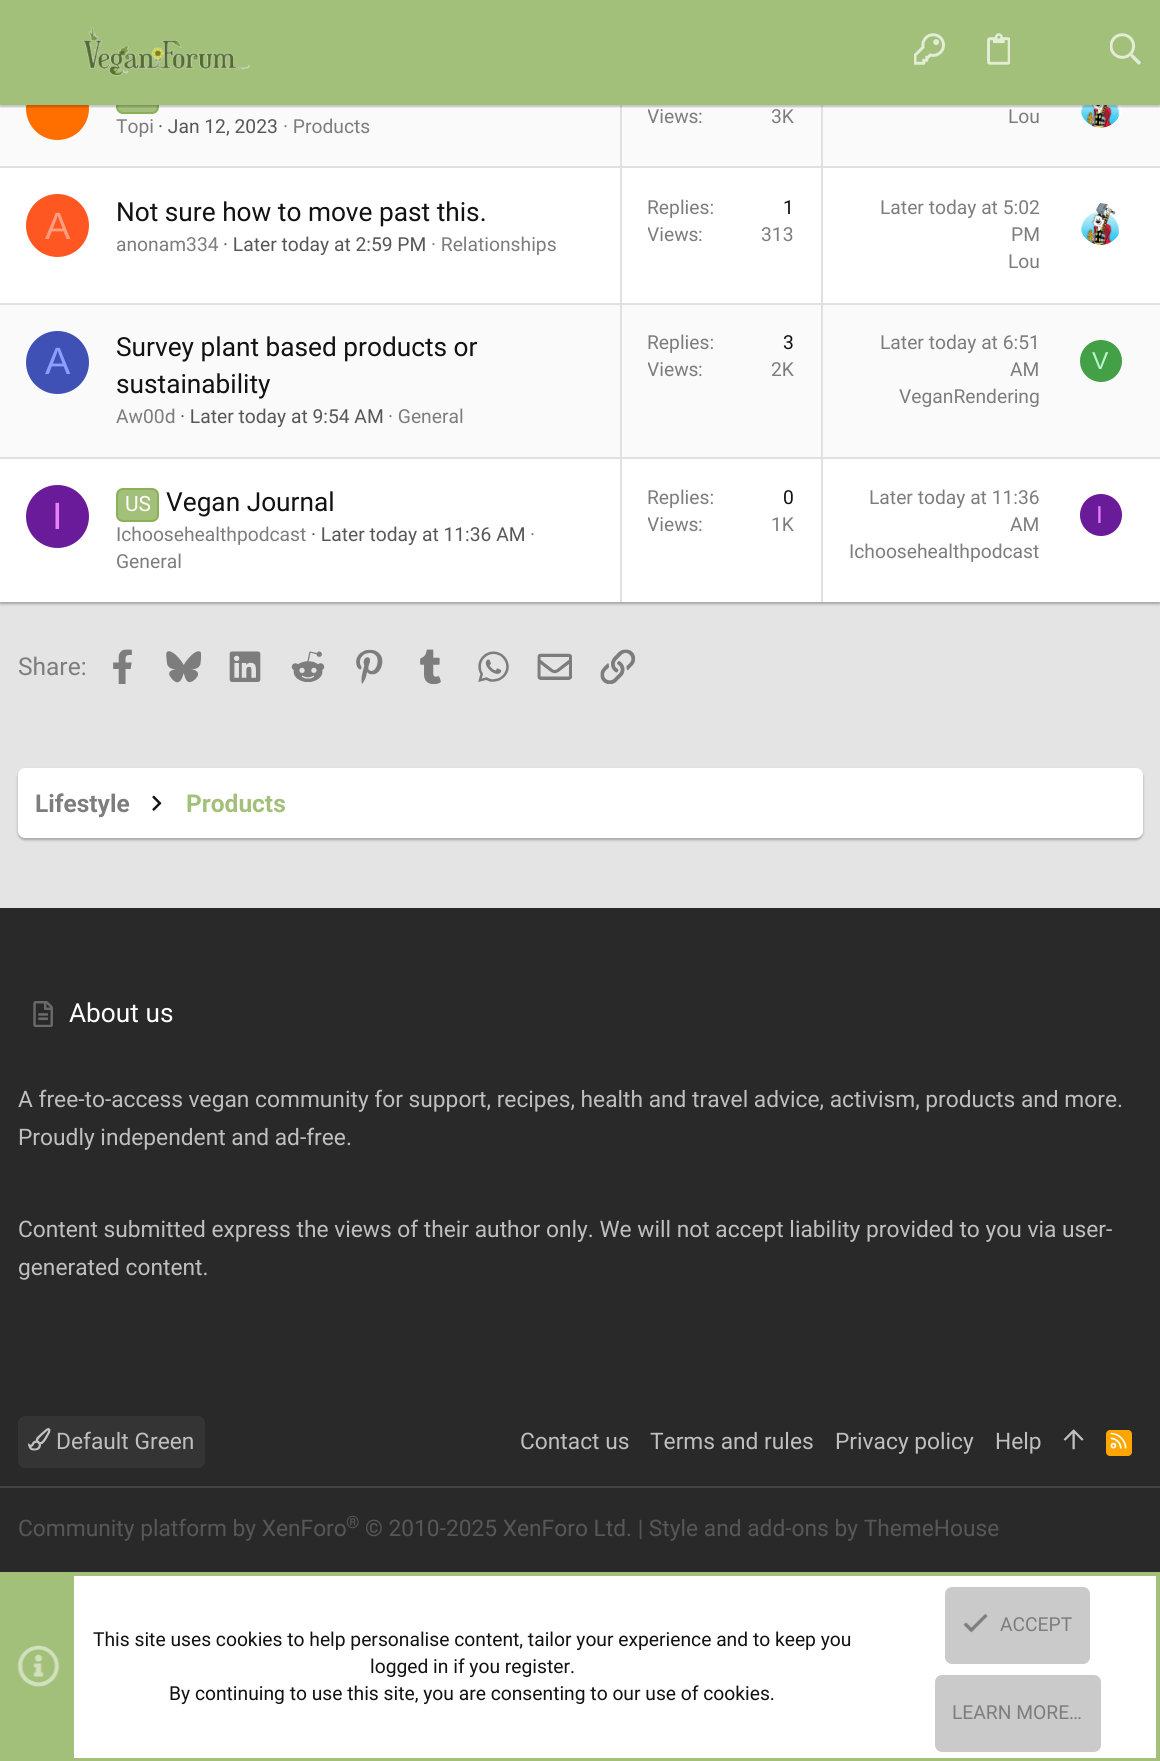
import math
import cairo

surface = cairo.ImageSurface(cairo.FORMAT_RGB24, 1160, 1761)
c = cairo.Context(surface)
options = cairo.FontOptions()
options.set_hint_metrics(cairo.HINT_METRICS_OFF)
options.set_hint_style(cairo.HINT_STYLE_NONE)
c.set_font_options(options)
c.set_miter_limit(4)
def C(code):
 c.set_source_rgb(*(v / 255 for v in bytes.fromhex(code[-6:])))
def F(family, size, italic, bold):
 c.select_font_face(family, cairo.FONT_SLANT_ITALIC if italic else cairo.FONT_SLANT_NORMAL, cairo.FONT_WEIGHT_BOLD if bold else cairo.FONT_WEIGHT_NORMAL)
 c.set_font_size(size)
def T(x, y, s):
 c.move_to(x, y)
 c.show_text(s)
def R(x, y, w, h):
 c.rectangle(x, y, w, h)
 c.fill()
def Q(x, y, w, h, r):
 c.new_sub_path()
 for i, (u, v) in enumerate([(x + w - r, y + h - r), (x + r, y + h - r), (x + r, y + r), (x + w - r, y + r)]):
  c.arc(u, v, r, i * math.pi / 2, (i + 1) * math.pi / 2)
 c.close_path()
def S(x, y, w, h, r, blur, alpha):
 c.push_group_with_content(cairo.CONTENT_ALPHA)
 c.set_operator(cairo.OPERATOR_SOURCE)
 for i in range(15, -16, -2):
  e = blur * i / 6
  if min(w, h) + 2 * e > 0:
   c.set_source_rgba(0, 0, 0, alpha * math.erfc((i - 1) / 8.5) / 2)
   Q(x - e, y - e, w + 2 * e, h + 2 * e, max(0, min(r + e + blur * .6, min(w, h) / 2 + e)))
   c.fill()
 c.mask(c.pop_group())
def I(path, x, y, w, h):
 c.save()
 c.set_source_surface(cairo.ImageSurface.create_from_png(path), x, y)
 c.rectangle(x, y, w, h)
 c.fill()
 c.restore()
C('e4e4e4')
c.paint()
C('000000')
S(0,-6,1160,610,0,2,.05)
S(0,-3,1160,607,0,1,.1)
S(0,-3,1160,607,0,1,.15)
C('fafafa')
R(0,105,1160,61)
C('ff6f00')
c.arc(57.5,108.5,31.5,0,2 * math.pi)
c.fill()
C('ffffff')
c.arc(1101,107,21,0,2 * math.pi)
c.fill()
C('a3c07a')
Q(117,82,41,31,6)
c.fill_preserve()
C('8bb057')
c.stroke()
C('a3c07a')
R(0,0,1160,105)
C('e0e0e0')
R(821,105,2,63)
R(620,105,2,63)
I('5.png',1081,105,39,23)
c.save()
c.rectangle(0,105,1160,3)
c.clip()
C('000000')
S(0,2,1160,105,0,1,.1)
S(0,2,1160,105,0,1,.15)
c.restore()
I('1.png',83,27,167,49)
I('2.png',914,33,31,32)
I('3.png',987,33,23,32)
I('4.png',1110,33,31,32)
C('ffffff')
R(0,168,1160,434)
c.save()
c.rectangle(648,103,147,28)
c.clip()
F('Roboto',19.25,0,0)
C('7d7d7d')
T(647,123,'Views')
c.restore()
F('Roboto',19.25,0,0)
C('7d7d7d')
T(698,123,':')
T(771,123,'3K')
T(1008,123,'Lou')
T(116,133,'Topi')
C('575757')
T(158,133,'· Jan 12, 2023')
C('7d7d7d')
T(283,133,'· Products')
C('e0e0e0')
R(0,166,1160,2)
C('ff5722')
c.new_path()
c.arc(57.5,225.5,31.5,0,2 * math.pi)
c.fill()
F('Liberation Sans',38,0,0)
C('ff9e80')
T(45,239,'A')
F('Roboto',26.25,0,0)
C('121212')
T(116,221,'Not sure how to move past this.')
F('Roboto',19.25,0,0)
C('7d7d7d')
T(116,251,'anonam334')
C('575757')
T(223,251,'· Later today at 2:59 PM')
C('7d7d7d')
T(431,251,'· Relationships')
C('e0e0e0')
R(821,166,2,137)
R(620,166,2,137)
C('7d7d7d')
T(647,214,'Replies:')
C('121212')
T(783,214,'1')
c.save()
c.rectangle(648,222,147,27)
c.clip()
C('7d7d7d')
T(647,241,'Views')
c.restore()
C('7d7d7d')
T(698,241,':')
T(761,241,'313')
T(880,214,'Later today at 5:02')
T(1011,241,'PM')
T(1008,268,'Lou')
I('6.png',1080,203,40,42)
C('fafafa')
R(0,305,1160,152)
C('e0e0e0')
R(0,303,1160,2)
C('3f51b5')
c.arc(57.5,362.5,31.5,0,2 * math.pi)
c.fill()
F('Liberation Sans',38,0,0)
C('8c9eff')
T(45,374,'A')
F('Roboto',26.25,0,0)
C('121212')
T(116,356,'Survey plant based products or')
T(116,393,'sustainability')
F('Roboto',19.25,0,0)
C('7d7d7d')
T(116,423,'Aw00d')
C('575757')
T(180,423,'· Later today at 9:54 AM')
C('7d7d7d')
T(388,423,'· General')
C('e0e0e0')
R(821,303,2,156)
R(620,303,2,156)
C('7d7d7d')
T(647,349,'Replies:')
C('121212')
T(783,349,'3')
c.save()
c.rectangle(648,357,147,26)
c.clip()
C('7d7d7d')
T(647,376,'Views')
c.restore()
C('7d7d7d')
T(698,376,':')
T(771,376,'2K')
T(880,349,'Later today at 6:51')
T(1010,376,'AM')
T(899,403,'VeganRendering')
C('43a047')
c.new_path()
c.arc(1101,361,21,0,2 * math.pi)
c.fill()
F('Liberation Sans',24.5,0,0)
C('b9f6ca')
T(1092,369,'V')
C('e0e0e0')
R(0,457,1160,2)
C('6a1b9a')
c.new_path()
c.arc(57.5,516.5,31.5,0,2 * math.pi)
c.fill()
F('Liberation Sans',38,0,0)
C('ea80fc')
T(52,529,'I')
C('a3c07a')
Q(117,489,41,32,6)
c.fill_preserve()
C('8bb057')
c.stroke()
F('Roboto',21,0,0)
C('ffffff')
T(125,511,'US')
F('Roboto',26.25,0,0)
C('121212')
T(166,511,'Vegan Journal')
F('Roboto',19.25,0,0)
C('7d7d7d')
T(116,541,'Ichoosehealthpodcast')
C('575757')
T(311,541,'· Later today at 11:36 AM')
C('7d7d7d')
T(530,541,'·')
T(116,568,'General')
C('e0e0e0')
R(821,457,2,145)
R(620,457,2,145)
C('7d7d7d')
T(647,504,'Replies:')
C('121212')
T(783,504,'0')
c.save()
c.rectangle(648,511,147,28)
c.clip()
C('7d7d7d')
T(647,531,'Views')
c.restore()
C('7d7d7d')
T(698,531,':')
T(771,531,'1K')
T(869,504,'Later today at 11:36')
T(1010,531,'AM')
T(849,558,'Ichoosehealthpodcast')
C('6a1b9a')
c.new_path()
c.arc(1101,515,21,0,2 * math.pi)
c.fill()
F('Liberation Sans',24.5,0,0)
C('ea80fc')
T(1096,523,'I')
F('Roboto',24.5,0,0)
C('7d7d7d')
T(18,675,'Share:')
I('7.png',113,649,19,35)
I('8.png',166,651,35,32)
I('9.png',229,651,32,31)
I('10.png',291,651,34,31)
I('11.png',356,649,27,35)
I('12.png',420,649,21,35)
I('13.png',478,651,31,31)
I('14.png',537,653,35,27)
I('15.png',600,649,35,35)
C('000000')
S(18,770,1125,70,7,2,.05)
S(18,770,1125,70,7,1,.1)
S(18,770,1125,70,7,1,.15)
C('ffffff')
Q(18,768,1125,70,7)
c.fill()
F('Roboto',24.5,0,1)
C('7d7d7d')
T(35,812,'Lifestyle')
I('16.png',152,795,10,16)
C('a3c07a')
T(186,812,'Products')
C('292929')
R(0,908,1160,578)
I('17.png',33,1001,20,26)
F('Roboto',26.25,0,0)
C('ffffff')
T(69,1022,'About us')
F('Roboto',22.75,0,0)
C('bfbfbf')
T(18,1107,'A free-to-access vegan community for support, recipes, health and travel advice, activism, products and more.')
T(18,1145,'Proudly independent and ad-free.')
T(18,1237,'Content submitted express the views of their author only. We will not accept liability provided to you via user-')
T(18,1275,'generated content.')
C('343434')
Q(18,1416,187,52,7)
c.fill()
I('18.png',28,1428,23,23)
C('bfbfbf')
T(56,1449,'Default Green')
T(520,1449,'Contact us')
T(650,1449,'Terms and rules')
T(835,1449,'Privacy policy')
T(995,1449,'Help')
I('19.png',1063,1429,21,21)
C('ffa500')
Q(1106,1430,26,26,4)
c.fill()
I('20.png',1110,1432,17,17)
C('292929')
R(0,1488,1160,84)
C('434343')
R(0,1486,1160,2)
C('575757')
T(18,1536,'Community platform by XenForo')
F('Roboto',17,0,0)
T(346,1528,'®')
F('Roboto',22.75,0,0)
T(365,1536,'© 2010-2025 XenForo Ltd. | Style and add-ons by ThemeHouse')
C('ffffff')
R(74,1576,1082,182)
c.rectangle(2,1574,1156,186)
C('a3c07a')
c.set_line_width(4)
c.stroke()
R(4,1576,70,182)
I('21.png',17,1645,43,42)
F('Roboto',19.25,0,0)
C('121212')
T(93,1646,'This site uses cookies to help personalise content, tailor your experience and to keep you')
T(370,1673,'logged in if you register.')
T(169,1700,'By continuing to use this site, you are consenting to our use of cookies.')
C('cacaca')
Q(945,1587,145,77,7)
c.fill()
I('22.png',963,1614,25,19)
C('7d7d7d')
T(1000,1631,'ACCEPT')
C('cacaca')
Q(935,1675,166,77,7)
c.fill()
C('7d7d7d')
T(952,1719,'LEARN MORE…')
surface.write_to_png('o.png')
